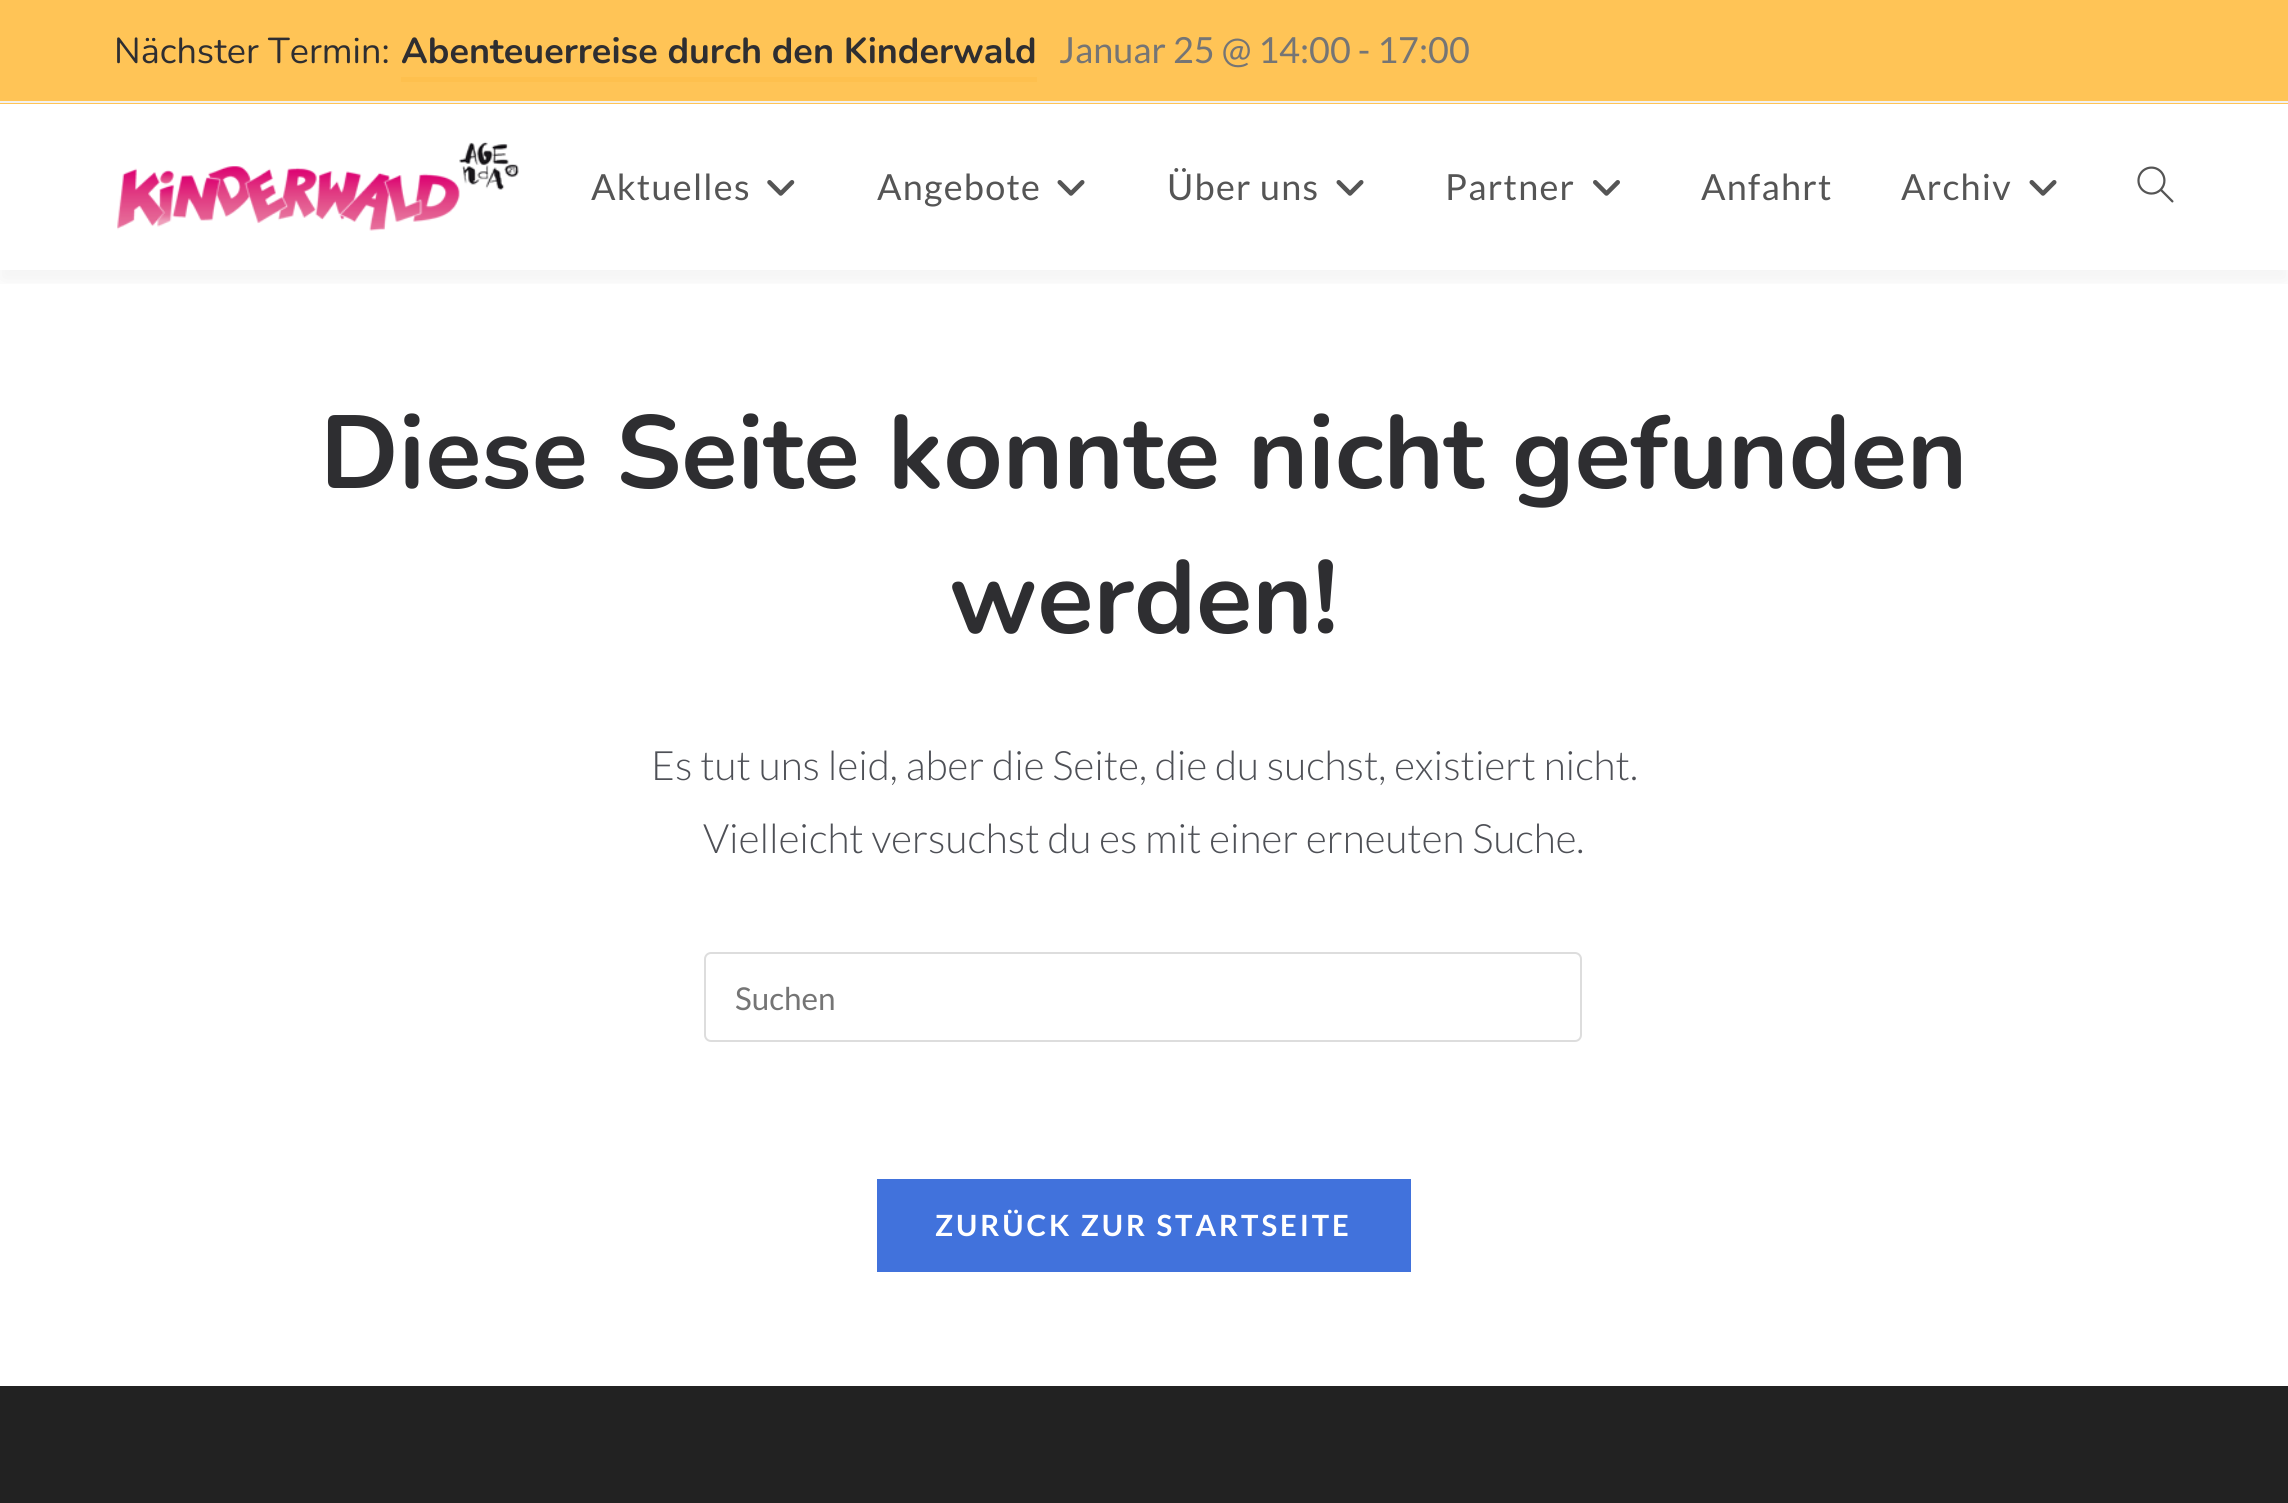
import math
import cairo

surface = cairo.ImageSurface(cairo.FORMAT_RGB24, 2288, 1503)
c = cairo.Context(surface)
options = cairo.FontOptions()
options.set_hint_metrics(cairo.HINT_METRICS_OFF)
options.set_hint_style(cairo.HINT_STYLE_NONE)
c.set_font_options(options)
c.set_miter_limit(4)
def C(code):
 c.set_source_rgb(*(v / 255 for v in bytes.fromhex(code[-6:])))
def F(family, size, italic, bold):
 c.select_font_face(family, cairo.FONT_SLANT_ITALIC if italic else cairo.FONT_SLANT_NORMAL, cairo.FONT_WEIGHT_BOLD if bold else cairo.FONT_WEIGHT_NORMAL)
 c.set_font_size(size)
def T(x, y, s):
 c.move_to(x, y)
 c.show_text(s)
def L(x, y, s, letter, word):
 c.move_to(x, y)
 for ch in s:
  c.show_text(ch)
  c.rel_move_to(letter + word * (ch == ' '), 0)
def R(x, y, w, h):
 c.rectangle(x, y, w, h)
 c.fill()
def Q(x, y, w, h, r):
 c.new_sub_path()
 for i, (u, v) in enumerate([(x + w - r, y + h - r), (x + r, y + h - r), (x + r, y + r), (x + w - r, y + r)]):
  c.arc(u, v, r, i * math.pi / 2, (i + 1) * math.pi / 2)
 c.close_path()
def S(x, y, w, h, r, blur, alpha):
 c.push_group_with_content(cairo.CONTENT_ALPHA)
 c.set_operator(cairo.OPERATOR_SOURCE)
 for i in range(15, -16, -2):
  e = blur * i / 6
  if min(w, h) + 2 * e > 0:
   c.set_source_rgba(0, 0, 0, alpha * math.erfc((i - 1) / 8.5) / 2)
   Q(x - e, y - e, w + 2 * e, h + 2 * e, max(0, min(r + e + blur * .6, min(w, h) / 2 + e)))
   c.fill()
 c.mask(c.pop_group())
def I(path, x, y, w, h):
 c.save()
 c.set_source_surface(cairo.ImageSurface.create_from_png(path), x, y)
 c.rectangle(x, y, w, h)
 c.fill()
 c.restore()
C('ffffff')
c.paint()
c.save()
c.rectangle(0,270,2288,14)
c.clip()
C('000000')
S(0,115,2288,166,0,11,.05)
c.restore()
C('ffc456')
R(0,0,2288,104)
C('f1f1f1')
R(0,101,2288,2)
F('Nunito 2 ExtraLight',36,0,0)
C('2e2e31')
T(114,63,'Nächster Termin:')
F('Nunito ExtraLight',36,0,0)
T(401,63,'Abenteuerreise durch den Kinderwald')
C('fec04e')
R(401,77,636,5)
F('Lato',36,0,0)
C('757575')
T(1059,63,'Januar 25 @ 14:00 - 17:00')
I('1.png',117,141,402,90)
C('555555')
L(591,200,'Aktuelles',1.25,0)
I('2.png',767,180,28,16)
L(877,200,'Angebote',1.25,0)
I('3.png',1057,180,28,16)
L(1167,200,'Über uns',1.25,0)
I('3.png',1336,180,28,16)
L(1445,200,'Partner',1.25,0)
I('4.png',1593,180,27,16)
L(1701,200,'Anfahrt',1.25,0)
L(1901,200,'Archiv',1.25,0)
I('3.png',2029,180,28,16)
I('5.png',2137,166,37,37)
F('Nunito ExtraLight',103.5,0,0)
C('2e2e31')
T(320,488,'Diese Seite konnte nicht gefunden')
T(949,633,'werden!')
F('Lato Light',40.5,0,0)
C('4e5056')
T(651,780,'Es tut uns leid, aber die Seite, die du suchst, existiert nicht.')
T(703,853,'Vielleicht versuchst du es mit einer erneuten Suche.')
Q(705,953,876,88,6)
C('dddddd')
c.stroke()
F('Lato',31.5,0,0)
C('757575')
T(735,1010,'Suchen')
C('4172dc')
R(877,1179,534,93)
F('Lato',29.25,0,1)
C('ffffff')
L(935,1236,'ZURÜCK ZUR STARTSEITE',2.9,0)
C('222222')
R(0,1386,2288,117)
surface.write_to_png('o.png')
